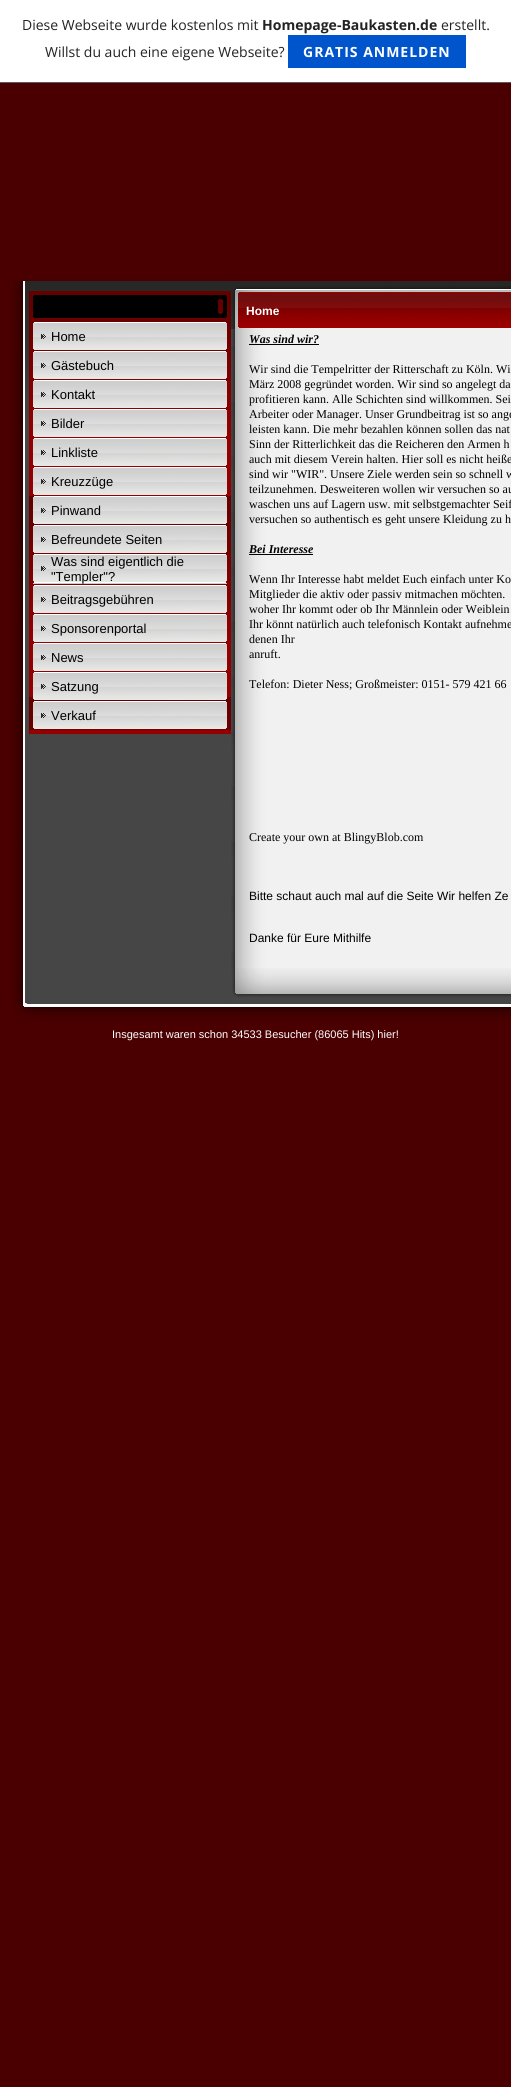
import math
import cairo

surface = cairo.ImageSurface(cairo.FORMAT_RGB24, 511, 2087)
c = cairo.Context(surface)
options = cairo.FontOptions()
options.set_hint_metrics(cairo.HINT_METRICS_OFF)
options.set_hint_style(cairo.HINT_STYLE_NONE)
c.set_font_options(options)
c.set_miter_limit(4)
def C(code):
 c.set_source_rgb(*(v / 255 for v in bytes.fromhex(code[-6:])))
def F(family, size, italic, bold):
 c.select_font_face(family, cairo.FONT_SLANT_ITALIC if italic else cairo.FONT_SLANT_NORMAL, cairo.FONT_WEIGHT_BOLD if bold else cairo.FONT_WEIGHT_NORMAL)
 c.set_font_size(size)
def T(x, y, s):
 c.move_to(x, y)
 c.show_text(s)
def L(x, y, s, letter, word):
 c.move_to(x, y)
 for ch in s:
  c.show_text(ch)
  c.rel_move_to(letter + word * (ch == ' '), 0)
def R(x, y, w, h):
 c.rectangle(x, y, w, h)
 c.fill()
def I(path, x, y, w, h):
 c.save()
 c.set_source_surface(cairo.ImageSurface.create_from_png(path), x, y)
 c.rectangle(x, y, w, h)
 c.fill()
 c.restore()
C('4a0001')
c.paint()
C('ffffff')
R(0,0,511,82)
C('5a5a5a')
R(0,82,511,1)
F('Open Sans',14,0,0)
C('232323')
T(22,30,'Diese Webseite wurde kostenlos mit')
F('Open Sans',14,0,1)
T(262,30,'Homepage-Baukasten.de')
F('Open Sans',14,0,0)
T(441,30,'erstellt.')
T(45,57,'Willst du auch eine eigene Webseite?')
C('0055cc')
R(288,35,178,33)
F('Open Sans',14,0,1)
C('ffffff')
L(303,57,'GRATIS ANMELDEN',1,0)
I('1.png',13,281,10,722)
I('2.png',23,281,2,722)
I('3.png',25,281,206,722)
C('640000')
R(29,291,202,4)
I('4.png',29,295,202,435)
I('5.png',33,295,194,23)
I('6.png',33,322,194,28)
F('Liberation Sans',13,0,0)
C('000000')
T(51,341,'Home')
I('7.png',33,351,194,28)
T(51,370,'Gästebuch')
I('8.png',33,380,194,28)
T(51,399,'Kontakt')
I('9.png',33,409,194,28)
T(51,428,'Bilder')
I('10.png',33,438,194,28)
T(51,457,'Linkliste')
I('11.png',33,467,194,28)
T(51,486,'Kreuzzüge')
I('12.png',33,496,194,28)
T(51,515,'Pinwand')
I('13.png',33,525,194,28)
T(51,544,'Befreundete Seiten')
I('14.png',33,554,194,30)
T(51,566,'Was sind eigentlich die')
T(51,581,'"Templer"?')
I('15.png',33,585,194,28)
T(51,604,'Beitragsgebühren')
I('16.png',33,614,194,28)
T(51,633,'Sponsorenportal')
I('17.png',33,643,194,28)
T(51,662,'News')
I('18.png',33,672,194,28)
T(51,691,'Satzung')
I('19.png',33,701,194,28)
T(51,720,'Verkauf')
C('940000')
R(29,730,202,4)
I('20.png',231,281,280,11)
I('21.png',233,286,278,6)
I('22.png',231,329,280,674)
I('23.png',231,292,280,37)
F('Liberation Sans',12,0,1)
C('ffffff')
T(246,315,'Home')
F('Liberation Serif',12,1,1)
C('000000')
T(249,343,'Was sind wir?')
R(249,344,70,1)
F('Liberation Serif',12,0,0)
T(249,373,'Wir sind die Tempelritter der Ritterschaft zu Köln. Wi')
T(249,388,'März 2008 gegründet worden. Wir sind so angelegt da')
T(249,403,'profitieren kann. Alle Schichten sind willkommen. Sei')
T(249,418,'Arbeiter oder Manager. Unser Grundbeitrag ist so ange')
T(249,433,'leisten kann. Die mehr bezahlen können sollen das nat')
T(249,448,'Sinn der Ritterlichkeit das die Reicheren den Armen h')
T(249,463,'auch mit diesem Verein halten. Hier soll es nicht heiße')
T(249,478,'sind wir "WIR". Unsere Ziele werden sein so schnell w')
T(249,493,'teilzunehmen. Desweiteren wollen wir versuchen so au')
T(249,508,'waschen uns auf Lagern usw. mit selbstgemachter Seif')
T(249,523,'versuchen so authentisch es geht unsere Kleidung zu h')
F('Liberation Serif',12,1,1)
T(249,553,'Bei Interesse')
R(249,554,64,1)
F('Liberation Serif',12,0,0)
T(249,583,'Wenn Ihr Interesse habt meldet Euch einfach unter Ko')
T(249,598,'Mitglieder die aktiv oder passiv mitmachen möchten.')
T(249,613,'woher Ihr kommt oder ob Ihr Männlein oder Weiblein')
T(249,628,'Ihr könnt natürlich auch telefonisch Kontakt aufnehme')
T(249,643,'denen Ihr')
T(249,658,'anruft.')
T(249,688,'Telefon: Dieter Ness; Großmeister: 0151- 579 421 66')
T(249,841,'Create your own at BlingyBlob.com')
F('Liberation Sans',12,0,0)
T(249,900,'Bitte schaut auch mal auf die Seite Wir helfen Ze')
T(249,942,'Danke für Eure Mithilfe')
I('24.png',232,968,279,35)
I('25.png',13,1003,498,25)
F('Liberation Sans',11,0,0)
C('ffffff')
T(112,1038,'Insgesamt waren schon 34533 Besucher (86065 Hits) hier!')
surface.write_to_png('o.png')
